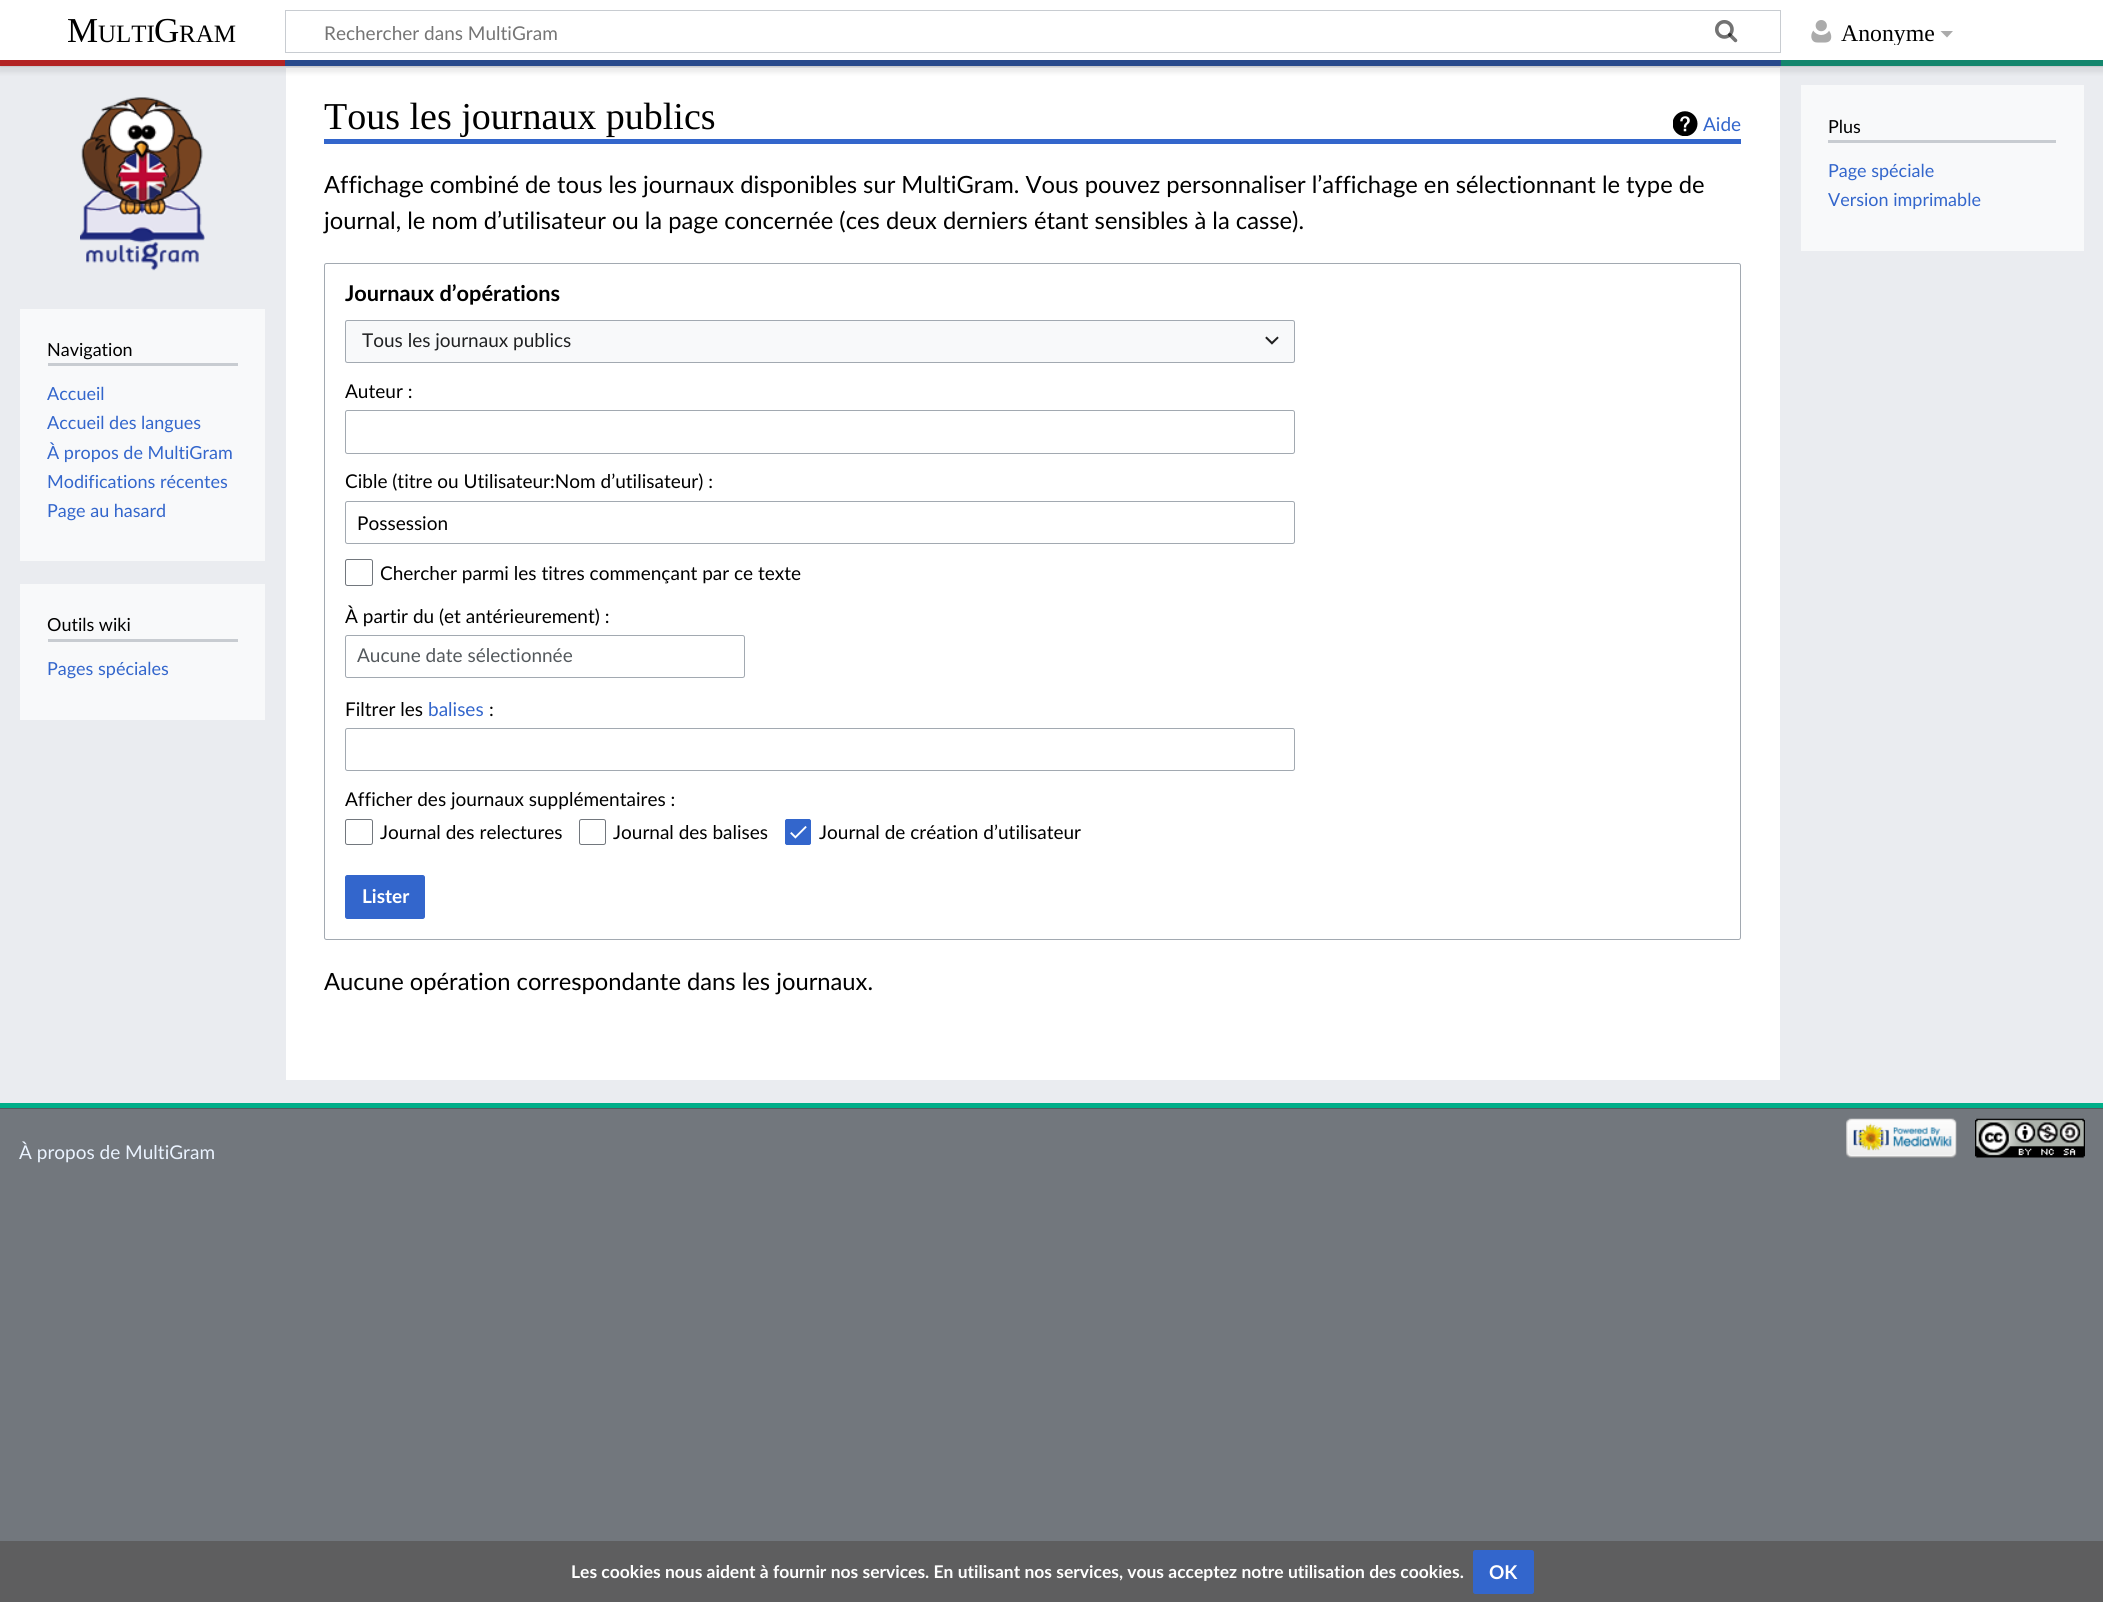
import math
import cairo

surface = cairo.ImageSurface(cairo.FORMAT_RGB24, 2103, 1602)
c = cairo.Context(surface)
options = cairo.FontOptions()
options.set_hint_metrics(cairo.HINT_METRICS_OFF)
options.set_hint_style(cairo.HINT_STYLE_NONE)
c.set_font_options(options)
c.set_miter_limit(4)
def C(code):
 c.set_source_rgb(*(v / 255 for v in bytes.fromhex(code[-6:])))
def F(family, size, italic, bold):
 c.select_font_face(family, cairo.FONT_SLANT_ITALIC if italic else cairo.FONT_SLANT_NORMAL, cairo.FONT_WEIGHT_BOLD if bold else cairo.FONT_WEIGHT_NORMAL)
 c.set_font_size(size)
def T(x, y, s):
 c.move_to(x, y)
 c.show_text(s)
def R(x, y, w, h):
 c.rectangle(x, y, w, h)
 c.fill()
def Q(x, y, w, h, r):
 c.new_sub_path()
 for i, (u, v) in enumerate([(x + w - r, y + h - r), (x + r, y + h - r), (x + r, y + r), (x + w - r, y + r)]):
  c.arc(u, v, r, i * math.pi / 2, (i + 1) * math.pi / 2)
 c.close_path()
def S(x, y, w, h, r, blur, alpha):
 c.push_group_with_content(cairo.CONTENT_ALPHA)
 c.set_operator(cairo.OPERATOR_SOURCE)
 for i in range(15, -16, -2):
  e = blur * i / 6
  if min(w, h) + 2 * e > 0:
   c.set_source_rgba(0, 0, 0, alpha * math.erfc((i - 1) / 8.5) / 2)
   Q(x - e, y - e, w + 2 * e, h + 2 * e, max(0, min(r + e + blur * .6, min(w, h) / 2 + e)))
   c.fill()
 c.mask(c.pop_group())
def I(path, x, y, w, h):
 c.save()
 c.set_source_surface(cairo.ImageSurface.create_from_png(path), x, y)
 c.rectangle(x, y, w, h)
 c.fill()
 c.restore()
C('72777d')
c.paint()
C('eaecf0')
R(0,66,2103,1037)
C('ffffff')
R(286,68,1494,1012)
C('000000')
S(0,60,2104,6,0,1,.2)
S(-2,61,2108,12,0,2,.07)
C('ffffff')
R(0,0,2103,60)
F('Liberation Serif',35,0,0)
C('000000')
T(67,42,'M')
F('Liberation Serif',25,0,0)
T(98,42,'ULTI')
F('Liberation Serif',35,0,0)
T(154,42,'G')
F('Liberation Serif',25,0,0)
T(179,42,'RAM')
c.rectangle(285.5,10.5,1495,42)
C('c8ccd1')
c.set_line_width(1)
c.stroke()
I('1.png',1715,20,23,23)
F('Lato',19,0,0)
C('757575')
T(324,40,'Rechercher dans MultiGram')
I('2.png',1715,20,23,23)
I('3.png',1811,20,21,23)
c.save()
c.rectangle(1840,21,94,24)
c.clip()
F('Liberation Serif',23.75,0,0)
C('000000')
T(1841,41,'Anonyme')
c.restore()
C('ababab')
c.new_path()
c.move_to(1953,31)
c.line_to(1947,37.5)
c.line_to(1940.5,31)
c.close_path()
c.fill()
C('b32424')
R(0,60,285,6)
C('2a4b8d')
R(285,60,1496,6)
C('14866d')
R(1781,60,322,6)
C('00af89')
R(0,1103,2103,5)
C('3366cc')
R(324,139,1417,5)
F('Liberation Serif',38,0,0)
C('000000')
T(324,129,'Tous les journaux publics')
I('4.png',1673,111,25,25)
F('Lato',19,0,0)
C('3366cc')
T(1703,131,'Aide')
F('Lato',23.75,0,0)
C('000000')
T(324,193,'Affichage combiné de tous les journaux disponibles sur MultiGram. Vous pouvez personnaliser l’affichage en sélectionnant le type de')
T(324,229,'journal, le nom d’utilisateur ou la page concernée (ces deux derniers étant sensibles à la casse).')
Q(324.5,263.5,1416,676,2)
C('a2a9b1')
c.stroke()
F('Lato',21.75,0,1)
C('000000')
T(345,301,'Journaux d’opérations')
C('f8f9fa')
R(345,320,950,43)
Q(345.5,320.5,949,42,2)
C('a2a9b1')
c.stroke()
F('Lato',19,0,0)
C('202122')
T(362,347,'Tous les journaux publics')
I('5.png',1265,336,14,9)
C('000000')
T(345,398,'Auteur :')
Q(345.5,410.5,949,43,2)
C('a2a9b1')
c.stroke()
C('000000')
T(345,488,'Cible (titre ou Utilisateur:Nom d’utilisateur) :')
Q(345.5,501.5,949,42,2)
C('a2a9b1')
c.stroke()
C('000000')
T(357,530,'Possession')
Q(345.5,559.5,27,26,2)
C('72777d')
c.stroke()
C('000000')
T(380,580,'Chercher parmi les titres commençant par ce texte')
T(345,623,'À partir du (et antérieurement) :')
Q(345.5,635.5,399,42,2)
C('a2a9b1')
c.stroke()
C('54595d')
T(357,662,'Aucune date sélectionnée')
C('000000')
T(345,716,'Filtrer les')
C('3366cc')
T(428,716,'balises')
C('000000')
T(489,716,':')
Q(345.5,728.5,949,42,2)
C('a2a9b1')
c.stroke()
C('000000')
T(345,806,'Afficher des journaux supplémentaires :')
Q(345.5,819.5,27,25,2)
C('72777d')
c.stroke()
C('000000')
T(380,839,'Journal des relectures')
Q(579.5,819.5,26,25,2)
C('72777d')
c.stroke()
C('000000')
T(613,839,'Journal des balises')
C('3366cc')
Q(785,819,26,26,2.5)
c.fill()
I('6.png',790,826,17,13)
Q(785.5,819.5,25,25,2)
c.stroke()
C('000000')
T(819,839,'Journal de création d’utilisateur')
C('3366cc')
Q(345.5,875.5,79,43,2)
c.fill_preserve()
c.stroke()
F('Lato',19,0,1)
C('ffffff')
T(362,903,'Lister')
F('Lato',23.75,0,0)
C('000000')
T(324,990,'Aucune opération correspondante dans les journaux.')
C('5e5e5f')
R(0,1541,2103,61)
F('Lato',17.48,0,1)
C('ffffff')
T(571,1578,'Les cookies nous aident à fournir nos services. En utilisant nos services, vous acceptez notre utilisation des cookies.')
C('3366cc')
Q(1473.5,1550.5,60,43,2)
c.fill_preserve()
c.stroke()
F('Lato',19,0,1)
C('ffffff')
T(1489,1579,'OK')
C('f8f9fa')
R(1801,85,283,166)
C('c8ccd1')
R(1828,140,228,3)
F('Lato',18,0,0)
C('000000')
T(1828,133,'Plus')
C('3366cc')
T(1828,177,'Page spéciale')
T(1828,206,'Version imprimable')
I('7.png',80,97,125,174)
C('f8f9fa')
R(20,309,245,252)
C('c8ccd1')
R(48,363,190,3)
C('000000')
T(47,356,'Navigation')
C('3366cc')
T(47,400,'Accueil')
T(47,429,'Accueil des langues')
T(47,459,'À propos de MultiGram')
T(47,488,'Modifications récentes')
T(47,517,'Page au hasard')
C('f8f9fa')
R(20,584,245,136)
C('c8ccd1')
R(48,639,190,3)
C('000000')
T(47,631,'Outils wiki')
C('3366cc')
T(47,675,'Pages spéciales')
C('54595d')
R(0,1108,2103,1)
F('Lato',19,0,0)
C('eaf3ff')
T(19,1159,'À propos de MultiGram')
I('8.png',1846,1118,111,40)
I('9.png',1975,1118,110,40)
surface.write_to_png('o.png')
